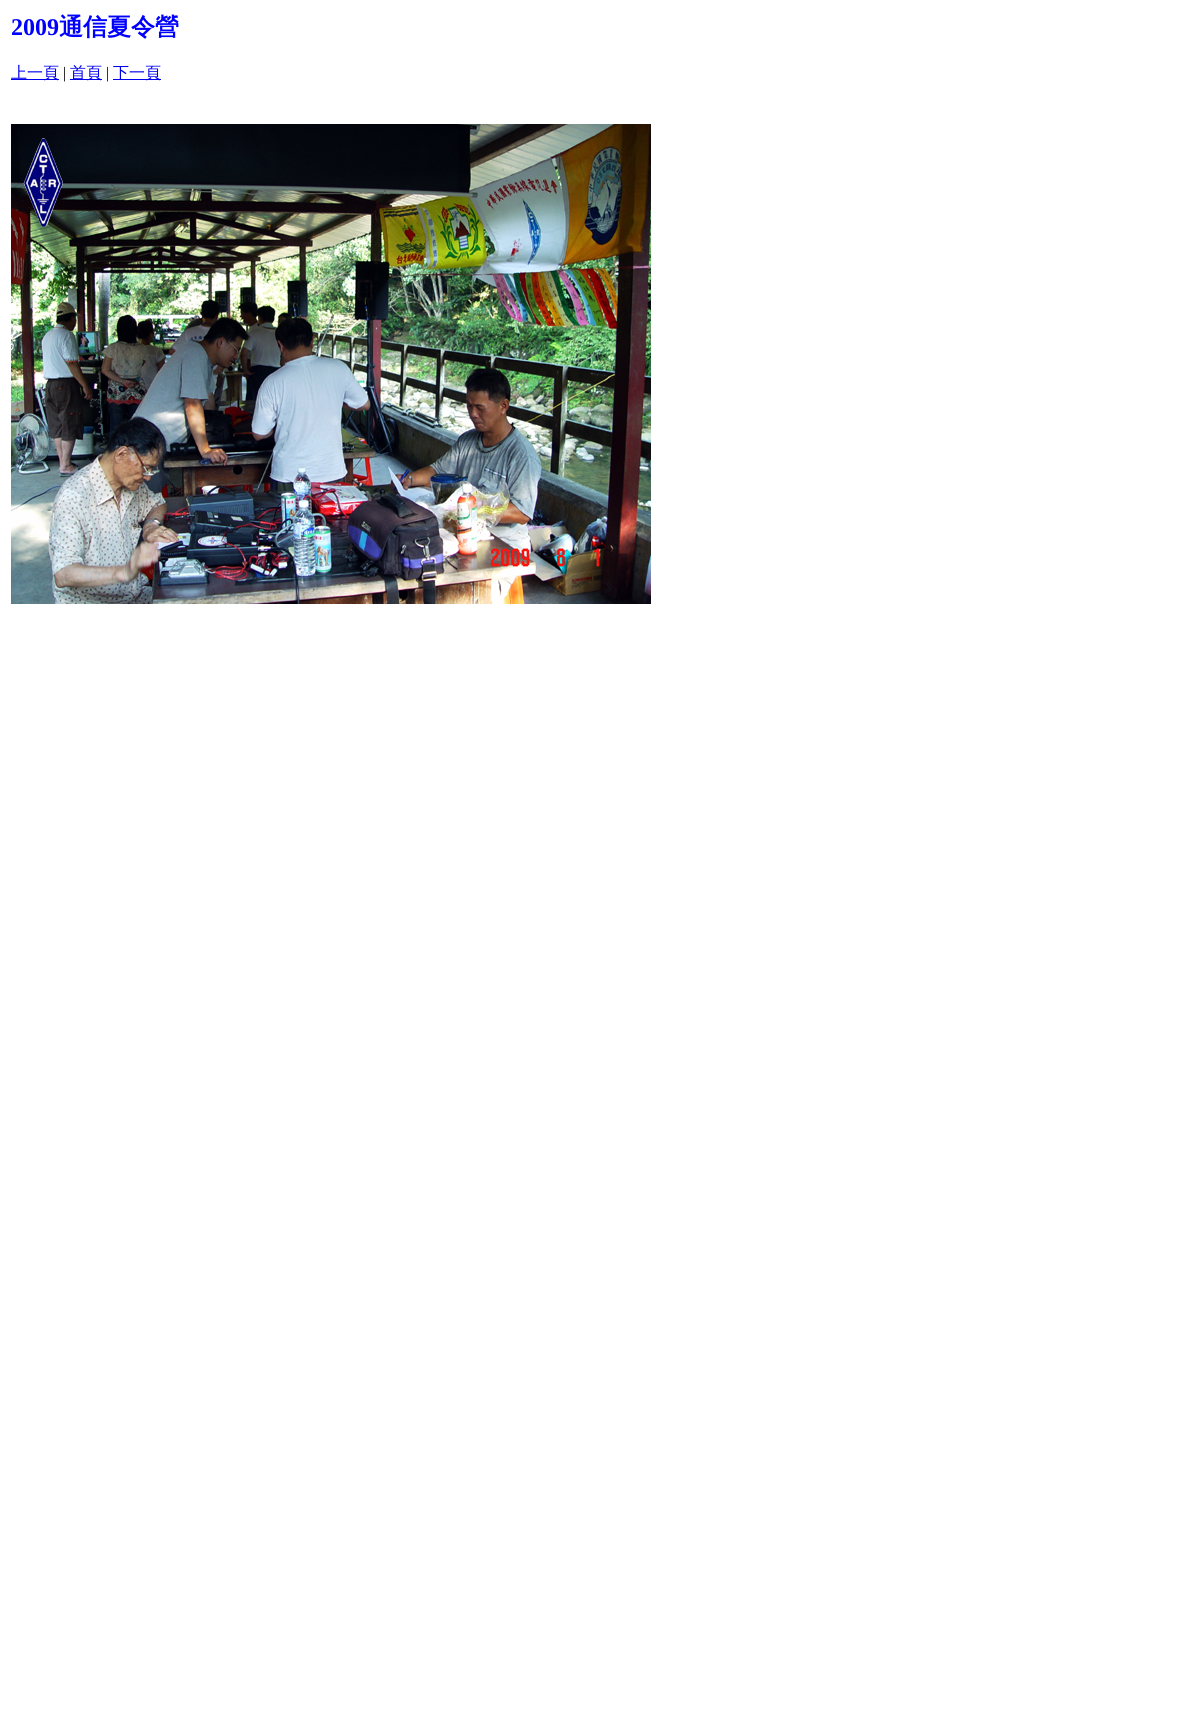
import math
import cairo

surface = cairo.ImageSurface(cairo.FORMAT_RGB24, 1202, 1723)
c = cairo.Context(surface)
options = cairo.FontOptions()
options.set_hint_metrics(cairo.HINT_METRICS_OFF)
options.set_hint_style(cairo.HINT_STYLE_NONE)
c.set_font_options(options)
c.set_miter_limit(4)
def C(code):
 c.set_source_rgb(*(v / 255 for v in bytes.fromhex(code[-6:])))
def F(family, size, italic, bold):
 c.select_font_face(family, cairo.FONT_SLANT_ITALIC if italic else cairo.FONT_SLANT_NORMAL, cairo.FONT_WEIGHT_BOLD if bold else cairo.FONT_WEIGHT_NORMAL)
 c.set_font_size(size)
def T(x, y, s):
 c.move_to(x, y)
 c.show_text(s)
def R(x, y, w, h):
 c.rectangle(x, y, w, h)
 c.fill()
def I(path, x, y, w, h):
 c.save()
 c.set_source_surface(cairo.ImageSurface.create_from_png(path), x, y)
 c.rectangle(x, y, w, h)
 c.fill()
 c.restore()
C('ffffff')
c.paint()
F('Liberation Serif',24,0,1)
C('0000ff')
T(11,35,'2009')
F('WenQuanYi Zen Hei',24,0,1)
T(59,35,'通信夏令營')
C('0000ee')
R(11,79,48,1)
F('WenQuanYi Zen Hei Medium',16,0,0)
T(11,78,'上一頁')
F('Liberation Serif',16,0,0)
C('000000')
T(63,78,'|')
C('0000ee')
R(70,79,32,1)
F('WenQuanYi Zen Hei Medium',16,0,0)
T(70,78,'首頁')
F('Liberation Serif',16,0,0)
C('000000')
T(106,78,'|')
C('0000ee')
R(113,79,48,1)
F('WenQuanYi Zen Hei Medium',16,0,0)
T(113,78,'下一頁')
I('1.png',11,124,640,480)
surface.write_to_png('o.png')
